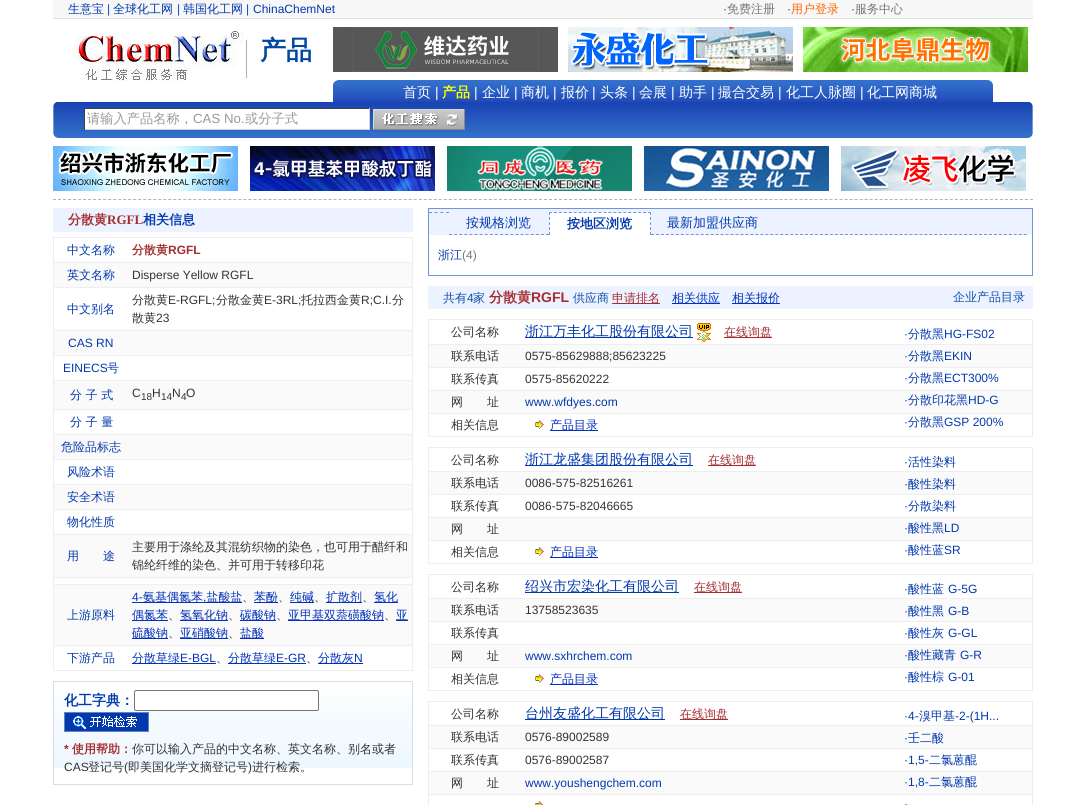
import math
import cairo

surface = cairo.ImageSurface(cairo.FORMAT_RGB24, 1085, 805)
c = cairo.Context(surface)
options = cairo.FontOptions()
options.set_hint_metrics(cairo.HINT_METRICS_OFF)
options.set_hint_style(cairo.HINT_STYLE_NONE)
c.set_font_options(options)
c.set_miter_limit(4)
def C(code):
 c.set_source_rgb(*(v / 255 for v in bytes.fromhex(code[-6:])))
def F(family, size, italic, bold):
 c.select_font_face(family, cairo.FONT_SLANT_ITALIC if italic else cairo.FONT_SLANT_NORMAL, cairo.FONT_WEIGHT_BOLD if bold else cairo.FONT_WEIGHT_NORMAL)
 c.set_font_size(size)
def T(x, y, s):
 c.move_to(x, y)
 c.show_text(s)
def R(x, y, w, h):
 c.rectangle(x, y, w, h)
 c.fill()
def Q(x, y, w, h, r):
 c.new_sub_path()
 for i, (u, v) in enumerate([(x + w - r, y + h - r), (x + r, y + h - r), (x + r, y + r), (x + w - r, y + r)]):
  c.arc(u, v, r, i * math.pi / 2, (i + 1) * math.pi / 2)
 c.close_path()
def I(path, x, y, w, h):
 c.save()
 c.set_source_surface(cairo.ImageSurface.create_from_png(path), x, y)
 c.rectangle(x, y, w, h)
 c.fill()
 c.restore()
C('ffffff')
c.paint()
C('f7f7f7')
R(53,0,980,18)
C('e1e1e1')
R(53,18,980,1)
F('WenQuanYi Zen Hei Medium',12,0,0)
C('0239ae')
T(68,13,'生意宝')
F('Liberation Sans',12,0,0)
C('004cc7')
T(107,13,'|')
F('WenQuanYi Zen Hei Medium',12,0,0)
C('0239ae')
T(113,13,'全球化工网')
F('Liberation Sans',12,0,0)
C('004cc7')
T(177,13,'|')
F('WenQuanYi Zen Hei Medium',12,0,0)
C('0239ae')
T(183,13,'韩国化工网')
F('Liberation Sans',12,0,0)
C('004cc7')
T(246,13,'|')
C('0239ae')
T(253,13,'ChinaChemNet')
C('004cc7')
T(723,13,'·')
F('WenQuanYi Zen Hei Medium',12,0,0)
C('777777')
T(727,13,'免费注册')
F('Liberation Sans',12,0,0)
C('004cc7')
T(787,13,'·')
F('WenQuanYi Zen Hei Medium',12,0,0)
C('ff6600')
T(791,13,'用户登录')
F('Liberation Sans',12,0,0)
C('004cc7')
T(851,13,'·')
F('WenQuanYi Zen Hei Medium',12,0,0)
C('777777')
T(855,13,'服务中心')
I('1.png',76,31,173,50)
F('WenQuanYi Zen Hei',26,0,1)
C('0247a4')
T(260,59,'产品')
I('2.png',333,27,225,45)
I('3.png',568,27,225,45)
I('4.png',803,27,225,45)
I('5.png',333,80,5,22)
I('6.png',338,80,650,22)
F('WenQuanYi Zen Hei Medium',14,0,0)
C('ffffff')
T(403,97,'首页')
F('Liberation Sans',14,0,0)
T(435,97,'|')
F('WenQuanYi Zen Hei',14,0,1)
C('ffff00')
T(442,97,'产品')
F('Liberation Sans',14,0,0)
C('ffffff')
T(474,97,'|')
F('WenQuanYi Zen Hei Medium',14,0,0)
T(482,97,'企业')
F('Liberation Sans',14,0,0)
T(514,97,'|')
F('WenQuanYi Zen Hei Medium',14,0,0)
T(521,97,'商机')
F('Liberation Sans',14,0,0)
T(553,97,'|')
F('WenQuanYi Zen Hei Medium',14,0,0)
T(561,97,'报价')
F('Liberation Sans',14,0,0)
T(592,97,'|')
F('WenQuanYi Zen Hei Medium',14,0,0)
T(600,97,'头条')
F('Liberation Sans',14,0,0)
T(632,97,'|')
F('WenQuanYi Zen Hei Medium',14,0,0)
T(639,97,'会展')
F('Liberation Sans',14,0,0)
T(671,97,'|')
F('WenQuanYi Zen Hei Medium',14,0,0)
T(679,97,'助手')
F('Liberation Sans',14,0,0)
T(711,97,'|')
F('WenQuanYi Zen Hei Medium',14,0,0)
T(718,97,'撮合交易')
F('Liberation Sans',14,0,0)
T(778,97,'|')
F('WenQuanYi Zen Hei Medium',14,0,0)
T(786,97,'化工人脉圈')
F('Liberation Sans',14,0,0)
T(860,97,'|')
F('WenQuanYi Zen Hei Medium',14,0,0)
T(867,97,'化工网商城')
I('7.png',988,80,5,22)
I('8.png',58,102,970,36)
I('9.png',53,102,5,36)
R(85,109,284,20)
C('41413f')
R(84,108,286,1)
C('d2d3ce')
R(369,108,1,22)
R(84,129,286,1)
C('41413f')
R(84,108,1,22)
F('WenQuanYi Zen Hei Medium',13.25,0,0)
C('999999')
T(87,123,'请输入产品名称，')
F('Liberation Sans',13.25,0,0)
T(193,123,'CAS No.')
F('WenQuanYi Zen Hei Medium',13.25,0,0)
T(245,123,'或分子式')
I('10.png',373,109,92,21)
I('11.png',1028,102,5,36)
c.new_path()
c.move_to(53,199.5)
c.line_to(1033,199.5)
C('abb5c6')
c.set_line_width(1)
c.set_dash([3,2.01])
c.stroke()
I('12.png',53,146,185,45)
I('13.png',250,146,185,45)
I('14.png',447,146,185,45)
I('15.png',644,146,185,45)
I('16.png',841,146,185,45)
C('ecf2ff')
R(53,208,360,24)
F('WenQuanYi Zen Hei',13,0,1)
C('a52e30')
T(68,224,'分散黄')
F('Liberation Serif',13,0,1)
T(107,224,'RGFL')
F('WenQuanYi Zen Hei',13,0,1)
C('0239ae')
T(143,224,'相关信息')
C('eeeeee')
R(53,237,360,434)
C('ffffff')
R(54,238,358,24)
F('WenQuanYi Zen Hei Medium',12,0,0)
C('0239ae')
T(67,254,'中文名称')
F('WenQuanYi Zen Hei',12,0,1)
C('a52e30')
T(132,254,'分散黄')
F('Liberation Sans',12,0,1)
T(168,254,'RGFL')
C('fafafa')
R(54,263,358,24)
F('WenQuanYi Zen Hei Medium',12,0,0)
C('0239ae')
T(67,279,'英文名称')
F('Liberation Sans',12,0,0)
C('333333')
T(132,279,'Disperse Yellow RGFL')
C('ffffff')
R(54,288,358,42)
F('WenQuanYi Zen Hei Medium',12,0,0)
C('0239ae')
T(67,313,'中文别名')
C('333333')
T(132,304,'分散黄')
F('Liberation Sans',12,0,0)
T(168,304,'E-RGFL;')
F('WenQuanYi Zen Hei Medium',12,0,0)
T(216,304,'分散金黄')
F('Liberation Sans',12,0,0)
T(264,304,'E-3RL;')
F('WenQuanYi Zen Hei Medium',12,0,0)
T(301,304,'托拉西金黄')
F('Liberation Sans',12,0,0)
T(361,304,'R;C.I.')
F('WenQuanYi Zen Hei Medium',12,0,0)
T(392,304,'分')
T(132,322,'散黄')
F('Liberation Sans',12,0,0)
T(156,322,'23')
C('fafafa')
R(54,331,358,24)
C('0239ae')
T(68,347,'CAS RN')
C('ffffff')
R(54,356,358,24)
C('0239ae')
T(63,372,'EINECS')
F('WenQuanYi Zen Hei Medium',12,0,0)
T(107,372,'号')
C('fafafa')
R(54,381,358,28)
C('0239ae')
T(70,399,'分 子 式')
F('Liberation Sans',12,0,0)
C('333333')
T(132,397,'C')
F('Liberation Sans',10,0,0)
T(141,400,'18')
F('Liberation Sans',12,0,0)
T(152,397,'H')
F('Liberation Sans',10,0,0)
T(161,400,'14')
F('Liberation Sans',12,0,0)
T(172,397,'N')
F('Liberation Sans',10,0,0)
T(181,400,'4')
F('Liberation Sans',12,0,0)
T(186,397,'O')
C('ffffff')
R(54,410,358,24)
F('WenQuanYi Zen Hei Medium',12,0,0)
C('0239ae')
T(70,426,'分 子 量')
C('fafafa')
R(54,435,358,24)
C('0239ae')
T(61,451,'危险品标志')
C('ffffff')
R(54,460,358,24)
C('0239ae')
T(67,476,'风险术语')
C('fafafa')
R(54,485,358,24)
C('0239ae')
T(67,501,'安全术语')
C('ffffff')
R(54,510,358,24)
C('0239ae')
T(67,526,'物化性质')
C('fafafa')
R(54,535,358,42)
C('0239ae')
T(67,560,'用　　途')
C('333333')
T(132,551,'主要用于涤纶及其混纺织物的染色，也可用于醋纤和')
T(132,569,'锦纶纤维的染色、并可用于转移印花')
C('ffffff')
R(54,578,358,6)
C('fafafa')
R(54,585,358,60)
C('0239ae')
T(67,619,'上游原料')
F('Liberation Sans',12,0,0)
C('0331bc')
T(132,601,'4-')
R(132,602,110,1)
F('WenQuanYi Zen Hei Medium',12,0,0)
T(143,601,'氨基偶氮苯 盐酸盐')
R(254,602,24,1)
T(254,601,'苯酚')
R(290,602,24,1)
T(290,601,'纯碱')
R(326,602,36,1)
T(326,601,'扩散剂')
R(374,602,24,1)
T(374,601,'氢化')
F('Liberation Sans',12,0,0)
T(203,601,',')
F('WenQuanYi Zen Hei Medium',12,0,0)
C('333333')
T(242,601,'、')
T(278,601,'、')
T(314,601,'、')
T(362,601,'、')
C('0331bc')
R(132,620,36,1)
T(132,619,'偶氮苯')
C('333333')
T(168,619,'、')
C('0331bc')
R(180,620,48,1)
T(180,619,'氢氧化钠')
C('333333')
T(228,619,'、')
C('0331bc')
R(240,620,36,1)
T(240,619,'碳酸钠')
C('333333')
T(276,619,'、')
C('0331bc')
R(288,620,96,1)
T(288,619,'亚甲基双萘磺酸钠')
C('333333')
T(384,619,'、')
C('0331bc')
T(396,619,'亚')
R(396,620,12,1)
R(132,638,36,1)
T(132,637,'硫酸钠')
C('333333')
T(168,637,'、')
C('0331bc')
R(180,638,48,1)
T(180,637,'亚硝酸钠')
C('333333')
T(228,637,'、')
C('0331bc')
R(240,638,24,1)
T(240,637,'盐酸')
C('ffffff')
R(54,646,358,24)
C('0239ae')
T(67,662,'下游产品')
C('0331bc')
R(132,663,84,1)
T(132,662,'分散草绿')
F('Liberation Sans',12,0,0)
T(180,662,'E-BGL')
R(228,663,78,1)
F('WenQuanYi Zen Hei Medium',12,0,0)
T(228,662,'分散草绿')
F('Liberation Sans',12,0,0)
T(276,662,'E-GR')
R(318,663,45,1)
F('WenQuanYi Zen Hei Medium',12,0,0)
T(318,662,'分散灰')
F('Liberation Sans',12,0,0)
T(354,662,'N')
F('WenQuanYi Zen Hei Medium',12,0,0)
C('333333')
T(216,662,'、')
T(306,662,'、')
I('17.png',54,696,358,72)
c.rectangle(53.5,681.5,359,103)
C('d2dfee')
c.set_dash([])
c.stroke()
F('WenQuanYi Zen Hei',14,0,1)
C('0239ae')
T(64,705,'化工字典：')
C('ffffff')
Q(134.5,690.5,184,20,1.5)
c.fill_preserve()
C('767676')
c.stroke()
I('18.png',64,712,85,20)
F('Liberation Sans',12,0,1)
C('a52e30')
T(64,753,'*')
F('WenQuanYi Zen Hei',12,0,1)
T(72,753,'使用帮助：')
F('WenQuanYi Zen Hei Medium',12,0,0)
C('333333')
T(132,753,'你可以输入产品的中文名称、英文名称、别名或者')
F('Liberation Sans',12,0,0)
T(64,771,'CAS')
F('WenQuanYi Zen Hei Medium',12,0,0)
T(88,771,'登记号')
F('Liberation Sans',12,0,0)
T(124,771,'(')
F('WenQuanYi Zen Hei Medium',12,0,0)
T(128,771,'即美国化学文摘登记号')
F('Liberation Sans',12,0,0)
T(248,771,')')
F('WenQuanYi Zen Hei Medium',12,0,0)
T(252,771,'进行检索。')
c.rectangle(428.5,208.5,604,67)
C('7294db')
c.stroke()
C('ecf2ff')
R(429,209,603,26)
c.new_path()
c.move_to(429,212.5)
c.line_to(449,212.5)
C('7294db')
c.set_dash([3,2.67])
c.stroke()
c.new_path()
c.move_to(449,234.5)
c.line_to(549,234.5)
c.set_dash([3,2.11])
c.stroke()
F('WenQuanYi Zen Hei Medium',13,0,0)
C('0239ae')
T(466,227,'按规格浏览')
C('ffffff')
R(549,212,102,23)
c.new_path()
c.move_to(549,212.5)
c.line_to(651,212.5)
C('7294db')
c.set_dash([3,1.95])
c.stroke()
c.new_path()
c.move_to(650.5,212)
c.line_to(650.5,235)
c.set_dash([3,2])
c.stroke()
c.new_path()
c.move_to(549.5,212)
c.line_to(549.5,235)
c.stroke()
F('WenQuanYi Zen Hei',13,0,1)
C('0239ae')
T(567,228,'按地区浏览')
c.new_path()
c.move_to(651,234.5)
c.line_to(1027,234.5)
C('7294db')
c.set_dash([3,1.97])
c.stroke()
F('WenQuanYi Zen Hei Medium',13,0,0)
C('0239ae')
T(667,227,'最新加盟供应商')
F('WenQuanYi Zen Hei Medium',12,0,0)
T(438,259,'浙江')
F('Liberation Sans',12,0,0)
C('777777')
T(462,259,'(4)')
C('ecf2ff')
R(428,286,605,23)
F('WenQuanYi Zen Hei Medium',12,0,0)
C('0e4fa9')
T(443,302,'共有')
F('Liberation Sans',12,0,0)
T(467,302,'4')
F('WenQuanYi Zen Hei Medium',12,0,0)
T(473,302,'家')
F('WenQuanYi Zen Hei',14,0,1)
C('a52e30')
T(489,302,'分散黄')
F('Liberation Sans',14,0,1)
T(531,302,'RGFL')
F('WenQuanYi Zen Hei Medium',12,0,0)
C('0e4fa9')
T(573,302,'供应商')
C('a52e30')
R(612,303,48,1)
T(612,302,'申请排名')
C('0331bc')
R(672,303,48,1)
T(672,302,'相关供应')
R(732,303,48,1)
T(732,302,'相关报价')
C('0e4fa9')
T(953,301,'企业产品目录')
C('eeeeee')
R(428,319,605,118)
C('ffffff')
R(429,320,603,24)
C('333333')
T(451,336,'公司名称')
C('0239ae')
R(525,337,168,1)
F('WenQuanYi Zen Hei Medium',14,0,0)
T(525,336,'浙江万丰化工股份有限公司')
I('19.png',697,323,14,19)
C('a52e30')
R(724,337,48,1)
F('WenQuanYi Zen Hei Medium',12,0,0)
T(724,336,'在线询盘')
F('Liberation Sans',12,0,0)
C('0239ae')
T(904,338,'·')
F('WenQuanYi Zen Hei Medium',12,0,0)
T(908,338,'分散黑')
F('Liberation Sans',12,0,0)
T(944,338,'HG-FS02')
C('fafafa')
R(429,345,603,22)
C('0239ae')
T(904,360,'·')
F('WenQuanYi Zen Hei Medium',12,0,0)
T(908,360,'分散黑')
F('Liberation Sans',12,0,0)
T(944,360,'EKIN')
C('ffffff')
R(429,368,603,22)
C('0239ae')
T(904,382,'·')
F('WenQuanYi Zen Hei Medium',12,0,0)
T(908,382,'分散黑')
F('Liberation Sans',12,0,0)
T(944,382,'ECT300%')
C('fafafa')
R(429,391,603,22)
C('0239ae')
T(904,404,'·')
F('WenQuanYi Zen Hei Medium',12,0,0)
T(908,404,'分散印花黑')
F('Liberation Sans',12,0,0)
T(968,404,'HD-G')
C('ffffff')
R(429,414,603,22)
C('0239ae')
T(904,426,'·')
F('WenQuanYi Zen Hei Medium',12,0,0)
T(908,426,'分散黑')
F('Liberation Sans',12,0,0)
T(944,426,'GSP 200%')
F('WenQuanYi Zen Hei Medium',12,0,0)
C('333333')
T(451,360,'联系电话')
F('Liberation Sans',12,0,0)
T(525,360,'0575-85629888;85623225')
F('WenQuanYi Zen Hei Medium',12,0,0)
T(451,383,'联系传真')
F('Liberation Sans',12,0,0)
T(525,383,'0575-85620222')
F('WenQuanYi Zen Hei Medium',12,0,0)
T(451,406,'网　　址')
F('Liberation Sans',12,0,0)
C('0239ae')
T(525,406,'www.wfdyes.com')
F('WenQuanYi Zen Hei Medium',12,0,0)
C('333333')
T(451,429,'相关信息')
I('20.png',535,420,9,9)
C('0331bc')
R(550,430,48,1)
T(550,429,'产品目录')
C('eeeeee')
R(428,447,605,117)
C('ffffff')
R(429,448,603,23)
C('333333')
T(451,464,'公司名称')
C('0239ae')
R(525,465,168,1)
F('WenQuanYi Zen Hei Medium',14,0,0)
T(525,464,'浙江龙盛集团股份有限公司')
C('a52e30')
R(708,465,48,1)
F('WenQuanYi Zen Hei Medium',12,0,0)
T(708,464,'在线询盘')
F('Liberation Sans',12,0,0)
C('0239ae')
T(904,466,'·')
F('WenQuanYi Zen Hei Medium',12,0,0)
T(908,466,'活性染料')
C('fafafa')
R(429,472,603,22)
F('Liberation Sans',12,0,0)
C('0239ae')
T(904,488,'·')
F('WenQuanYi Zen Hei Medium',12,0,0)
T(908,488,'酸性染料')
C('ffffff')
R(429,495,603,22)
F('Liberation Sans',12,0,0)
C('0239ae')
T(904,510,'·')
F('WenQuanYi Zen Hei Medium',12,0,0)
T(908,510,'分散染料')
C('fafafa')
R(429,518,603,22)
F('Liberation Sans',12,0,0)
C('0239ae')
T(904,532,'·')
F('WenQuanYi Zen Hei Medium',12,0,0)
T(908,532,'酸性黑')
F('Liberation Sans',12,0,0)
T(944,532,'LD')
C('ffffff')
R(429,541,603,22)
C('0239ae')
T(904,554,'·')
F('WenQuanYi Zen Hei Medium',12,0,0)
T(908,554,'酸性蓝')
F('Liberation Sans',12,0,0)
T(944,554,'SR')
F('WenQuanYi Zen Hei Medium',12,0,0)
C('333333')
T(451,487,'联系电话')
F('Liberation Sans',12,0,0)
T(525,487,'0086-575-82516261')
F('WenQuanYi Zen Hei Medium',12,0,0)
T(451,510,'联系传真')
F('Liberation Sans',12,0,0)
T(525,510,'0086-575-82046665')
F('WenQuanYi Zen Hei Medium',12,0,0)
T(451,533,'网　　址')
T(451,556,'相关信息')
I('20.png',535,547,9,9)
C('0331bc')
R(550,557,48,1)
T(550,556,'产品目录')
C('eeeeee')
R(428,574,605,117)
C('ffffff')
R(429,575,603,23)
C('333333')
T(451,591,'公司名称')
C('0239ae')
R(525,592,154,1)
F('WenQuanYi Zen Hei Medium',14,0,0)
T(525,591,'绍兴市宏染化工有限公司')
C('a52e30')
R(694,592,48,1)
F('WenQuanYi Zen Hei Medium',12,0,0)
T(694,591,'在线询盘')
F('Liberation Sans',12,0,0)
C('0239ae')
T(904,593,'·')
F('WenQuanYi Zen Hei Medium',12,0,0)
T(908,593,'酸性蓝')
F('Liberation Sans',12,0,0)
T(948,593,'G-5G')
C('fafafa')
R(429,599,603,22)
C('0239ae')
T(904,615,'·')
F('WenQuanYi Zen Hei Medium',12,0,0)
T(908,615,'酸性黑')
F('Liberation Sans',12,0,0)
T(948,615,'G-B')
C('ffffff')
R(429,622,603,22)
C('0239ae')
T(904,637,'·')
F('WenQuanYi Zen Hei Medium',12,0,0)
T(908,637,'酸性灰')
F('Liberation Sans',12,0,0)
T(948,637,'G-GL')
C('fafafa')
R(429,645,603,22)
C('0239ae')
T(904,659,'·')
F('WenQuanYi Zen Hei Medium',12,0,0)
T(908,659,'酸性藏青')
F('Liberation Sans',12,0,0)
T(960,659,'G-R')
C('ffffff')
R(429,668,603,22)
C('0239ae')
T(904,681,'·')
F('WenQuanYi Zen Hei Medium',12,0,0)
T(908,681,'酸性棕')
F('Liberation Sans',12,0,0)
T(948,681,'G-01')
F('WenQuanYi Zen Hei Medium',12,0,0)
C('333333')
T(451,614,'联系电话')
F('Liberation Sans',12,0,0)
T(525,614,'13758523635')
F('WenQuanYi Zen Hei Medium',12,0,0)
T(451,637,'联系传真')
T(451,660,'网　　址')
F('Liberation Sans',12,0,0)
C('0239ae')
T(525,660,'www.sxhrchem.com')
F('WenQuanYi Zen Hei Medium',12,0,0)
C('333333')
T(451,683,'相关信息')
I('20.png',535,674,9,9)
C('0331bc')
R(550,684,48,1)
T(550,683,'产品目录')
C('eeeeee')
R(428,701,605,104)
C('ffffff')
R(429,702,603,23)
C('333333')
T(451,718,'公司名称')
C('0239ae')
R(525,719,140,1)
F('WenQuanYi Zen Hei Medium',14,0,0)
T(525,718,'台州友盛化工有限公司')
C('a52e30')
R(680,719,48,1)
F('WenQuanYi Zen Hei Medium',12,0,0)
T(680,718,'在线询盘')
F('Liberation Sans',12,0,0)
C('0239ae')
T(904,720,'·4-')
F('WenQuanYi Zen Hei Medium',12,0,0)
T(919,720,'溴甲基')
F('Liberation Sans',12,0,0)
T(955,720,'-2-(1H...')
C('fafafa')
R(429,726,603,22)
C('0239ae')
T(904,742,'·')
F('WenQuanYi Zen Hei Medium',12,0,0)
T(908,742,'壬二酸')
C('ffffff')
R(429,749,603,22)
F('Liberation Sans',12,0,0)
C('0239ae')
T(904,764,'·1,5-')
F('WenQuanYi Zen Hei Medium',12,0,0)
T(929,764,'二氯蒽醌')
C('fafafa')
R(429,772,603,22)
F('Liberation Sans',12,0,0)
C('0239ae')
T(904,786,'·1,8-')
F('WenQuanYi Zen Hei Medium',12,0,0)
T(929,786,'二氯蒽醌')
C('ffffff')
R(429,795,603,10)
F('Liberation Sans',12,0,0)
C('0239ae')
T(904,808,'·')
F('WenQuanYi Zen Hei Medium',12,0,0)
C('333333')
T(451,741,'联系电话')
F('Liberation Sans',12,0,0)
T(525,741,'0576-89002589')
F('WenQuanYi Zen Hei Medium',12,0,0)
T(451,764,'联系传真')
F('Liberation Sans',12,0,0)
T(525,764,'0576-89002587')
F('WenQuanYi Zen Hei Medium',12,0,0)
T(451,787,'网　　址')
F('Liberation Sans',12,0,0)
C('0239ae')
T(525,787,'www.youshengchem.com')
I('21.png',535,801,9,4)
surface.write_to_png('o.png')
